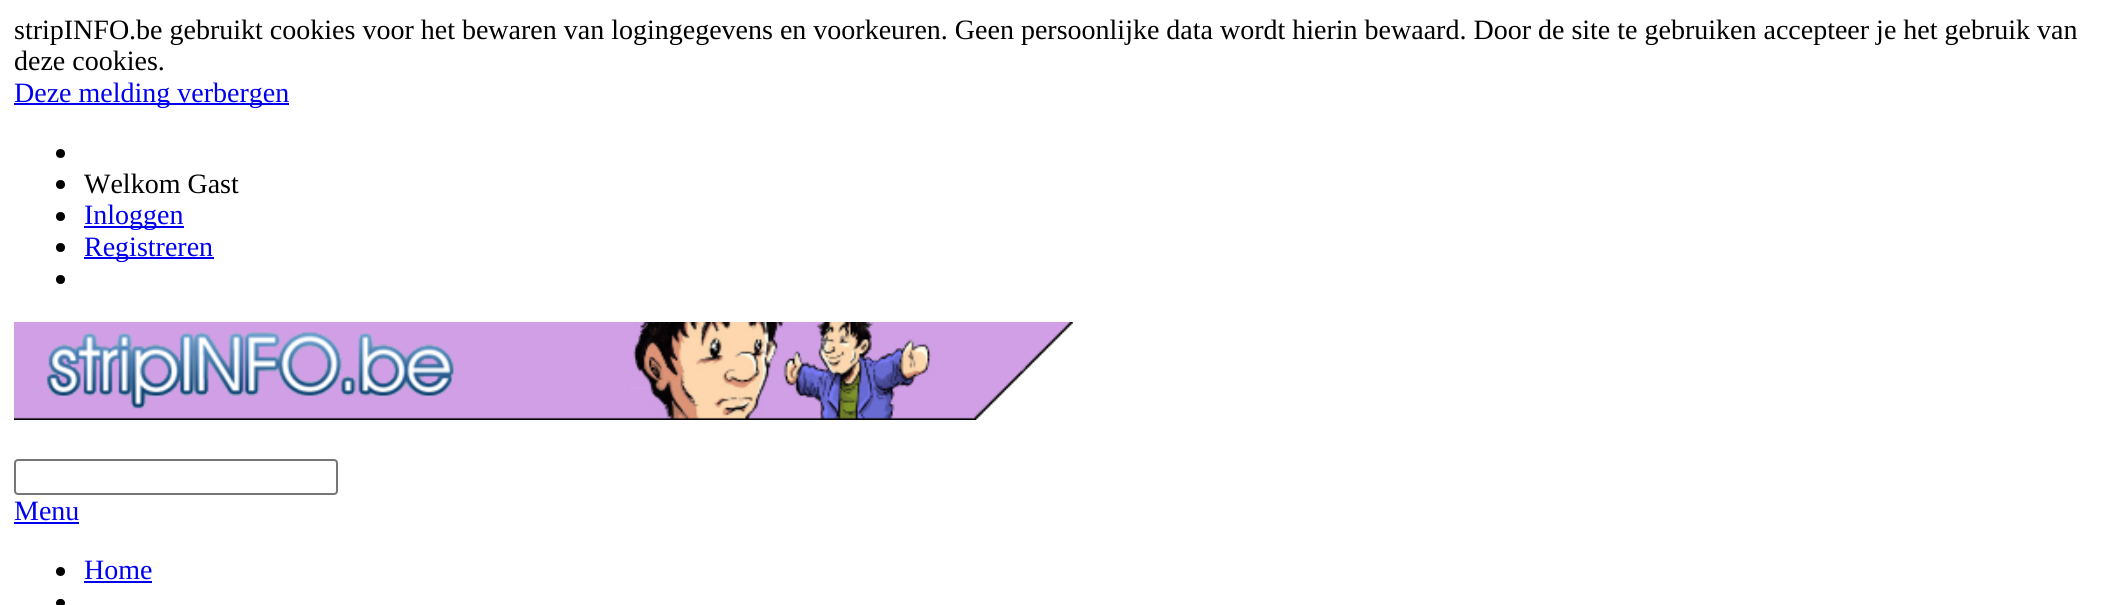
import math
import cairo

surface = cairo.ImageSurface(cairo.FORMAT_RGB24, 2101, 605)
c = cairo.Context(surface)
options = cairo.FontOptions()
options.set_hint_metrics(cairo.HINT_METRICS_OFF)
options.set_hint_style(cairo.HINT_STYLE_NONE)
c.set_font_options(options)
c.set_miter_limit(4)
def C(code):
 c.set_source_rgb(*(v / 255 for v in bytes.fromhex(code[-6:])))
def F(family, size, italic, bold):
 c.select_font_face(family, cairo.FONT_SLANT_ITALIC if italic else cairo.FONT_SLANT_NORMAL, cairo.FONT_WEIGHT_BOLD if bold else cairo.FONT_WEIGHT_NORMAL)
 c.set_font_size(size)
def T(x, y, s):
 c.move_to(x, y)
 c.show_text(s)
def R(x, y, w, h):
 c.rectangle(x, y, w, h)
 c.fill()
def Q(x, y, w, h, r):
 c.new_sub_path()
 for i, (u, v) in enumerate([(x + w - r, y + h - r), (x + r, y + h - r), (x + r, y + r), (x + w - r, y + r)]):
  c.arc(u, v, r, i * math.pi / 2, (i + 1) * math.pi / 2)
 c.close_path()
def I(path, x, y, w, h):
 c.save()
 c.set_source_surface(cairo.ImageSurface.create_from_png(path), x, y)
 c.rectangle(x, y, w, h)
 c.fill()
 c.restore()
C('ffffff')
c.paint()
F('Liberation Serif',28,0,0)
C('000000')
T(14,39,'stripINFO.be gebruikt cookies voor het bewaren van logingegevens en voorkeuren. Geen persoonlijke data wordt hierin bewaard. Door de site te gebruiken accepteer je het gebruik van')
T(14,70,'deze cookies.')
C('0000ee')
R(14,103,275,2)
T(14,102,'Deze melding verbergen')
C('000000')
c.new_path()
c.arc(60.5,153.5,4.5,0,2 * math.pi)
c.fill()
c.arc(60.5,184.5,4.5,0,2 * math.pi)
c.fill()
T(84,193,'Welkom Gast')
c.new_path()
c.arc(60.5,216.5,4.5,0,2 * math.pi)
c.fill()
C('0000ee')
R(84,226,100,2)
T(84,224,'Inloggen')
C('000000')
c.new_path()
c.arc(60.5,247.5,4.5,0,2 * math.pi)
c.fill()
C('0000ee')
R(84,257,130,2)
T(84,256,'Registreren')
C('000000')
c.new_path()
c.arc(60.5,279.5,4.5,0,2 * math.pi)
c.fill()
I('1.png',14,322,1059,98)
Q(15,460,322,34,3)
C('767676')
c.stroke()
C('0000ee')
T(14,520,'Menu')
R(14,522,65,2)
C('000000')
c.new_path()
c.arc(60.5,571.5,4.5,0,2 * math.pi)
c.fill()
C('0000ee')
T(84,579,'Home')
R(84,581,68,2)
C('000000')
Q(56,599,9,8,4)
c.fill()
surface.write_to_png('o.png')
